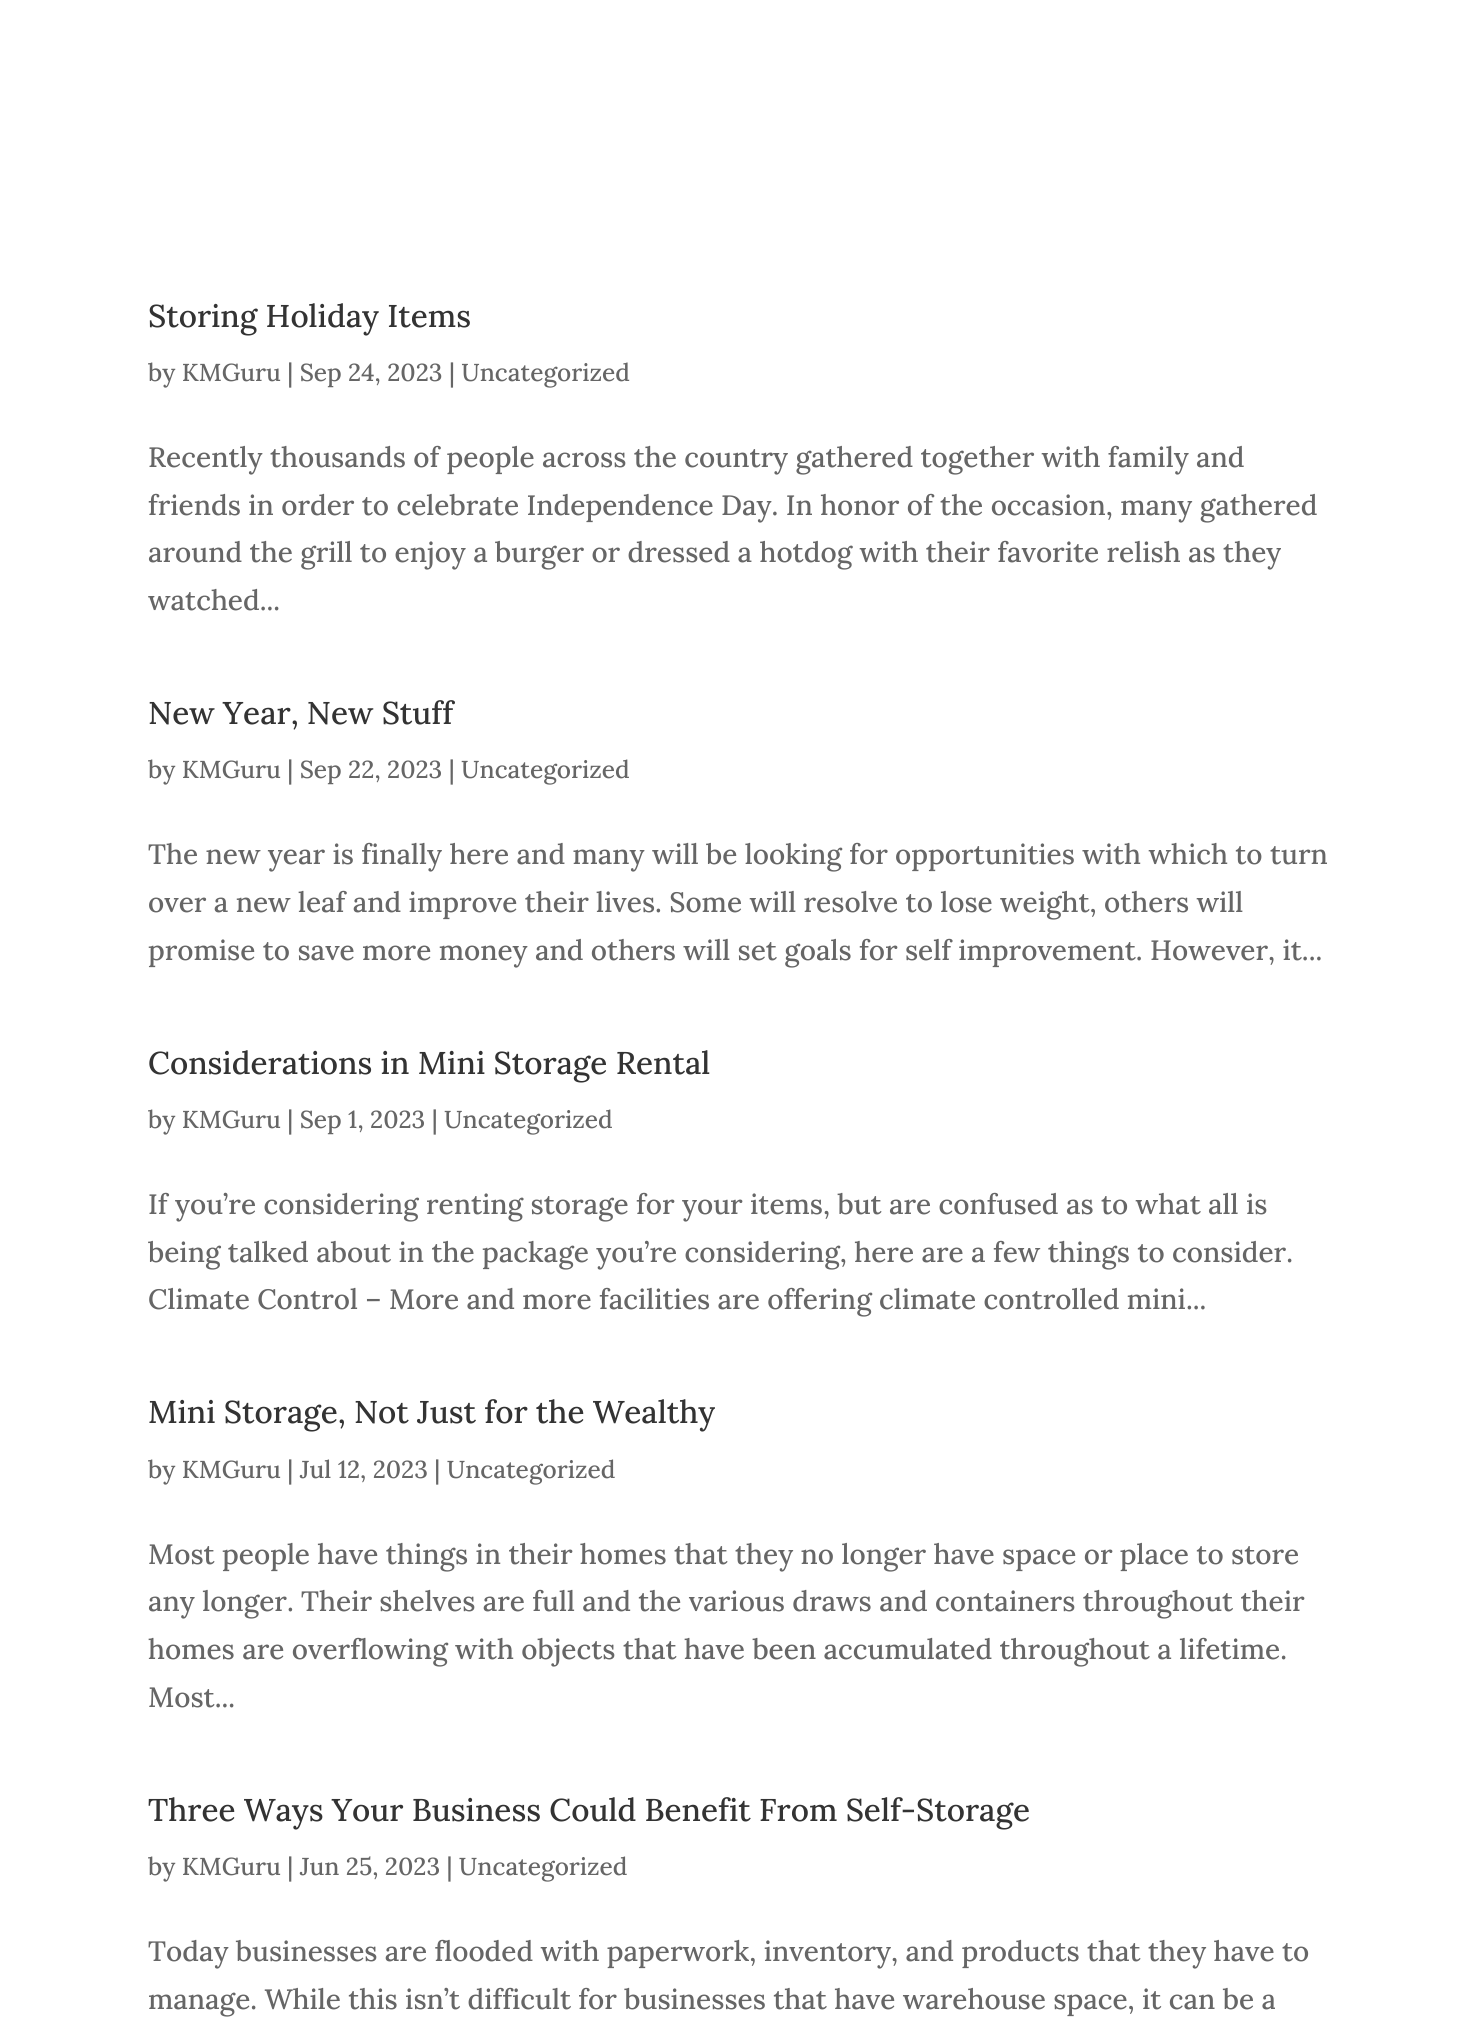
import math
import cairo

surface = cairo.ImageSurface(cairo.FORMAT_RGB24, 1474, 2020)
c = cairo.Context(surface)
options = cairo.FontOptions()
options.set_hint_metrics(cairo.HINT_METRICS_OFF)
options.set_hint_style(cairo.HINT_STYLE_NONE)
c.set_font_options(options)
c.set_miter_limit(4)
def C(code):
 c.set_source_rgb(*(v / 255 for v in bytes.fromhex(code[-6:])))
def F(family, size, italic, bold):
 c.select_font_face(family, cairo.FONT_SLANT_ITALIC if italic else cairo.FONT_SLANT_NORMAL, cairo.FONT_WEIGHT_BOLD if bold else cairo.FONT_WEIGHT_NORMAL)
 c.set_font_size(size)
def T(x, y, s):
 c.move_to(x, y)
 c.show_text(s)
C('ffffff')
c.paint()
F('Lora Medium',31.5,0,0)
C('333333')
T(148,327,'Storing Holiday Items')
F('Lora Medium',24.5,0,0)
C('666666')
T(148,381,'by KMGuru | Sep 24, 2023 | Uncategorized')
F('Lora Medium',28,0,0)
T(148,467,'Recently thousands of people across the country gathered together with family and')
T(148,515,'friends in order to celebrate Independence Day. In honor of the occasion, many gathered')
T(148,562,'around the grill to enjoy a burger or dressed a hotdog with their favorite relish as they')
T(148,610,'watched...')
F('Lora Medium',31.5,0,0)
C('333333')
T(148,724,'New Year, New Stuff')
F('Lora Medium',24.5,0,0)
C('666666')
T(148,778,'by KMGuru | Sep 22, 2023 | Uncategorized')
F('Lora Medium',28,0,0)
T(148,864,'The new year is finally here and many will be looking for opportunities with which to turn')
T(148,912,'over a new leaf and improve their lives. Some will resolve to lose weight, others will')
T(148,960,'promise to save more money and others will set goals for self improvement. However, it...')
F('Lora Medium',31.5,0,0)
C('333333')
T(148,1074,'Considerations in Mini Storage Rental')
F('Lora Medium',24.5,0,0)
C('666666')
T(148,1128,'by KMGuru | Sep 1, 2023 | Uncategorized')
F('Lora Medium',28,0,0)
T(148,1214,'If you’re considering renting storage for your items, but are confused as to what all is')
T(148,1262,'being talked about in the package you’re considering, here are a few things to consider.')
T(148,1309,'Climate Control – More and more facilities are offering climate controlled mini...')
F('Lora Medium',31.5,0,0)
C('333333')
T(148,1423,'Mini Storage, Not Just for the Wealthy')
F('Lora Medium',24.5,0,0)
C('666666')
T(148,1478,'by KMGuru | Jul 12, 2023 | Uncategorized')
F('Lora Medium',28,0,0)
T(148,1564,'Most people have things in their homes that they no longer have space or place to store')
T(148,1611,'any longer. Their shelves are full and the various draws and containers throughout their')
T(148,1659,'homes are overflowing with objects that have been accumulated throughout a lifetime.')
T(148,1707,'Most...')
F('Lora Medium',31.5,0,0)
C('333333')
T(148,1821,'Three Ways Your Business Could Benefit From Self-Storage')
F('Lora Medium',24.5,0,0)
C('666666')
T(148,1875,'by KMGuru | Jun 25, 2023 | Uncategorized')
F('Lora Medium',28,0,0)
T(148,1961,'Today businesses are flooded with paperwork, inventory, and products that they have to')
T(148,2009,'manage. While this isn’t difficult for businesses that have warehouse space, it can be a')
surface.write_to_png('o.png')
